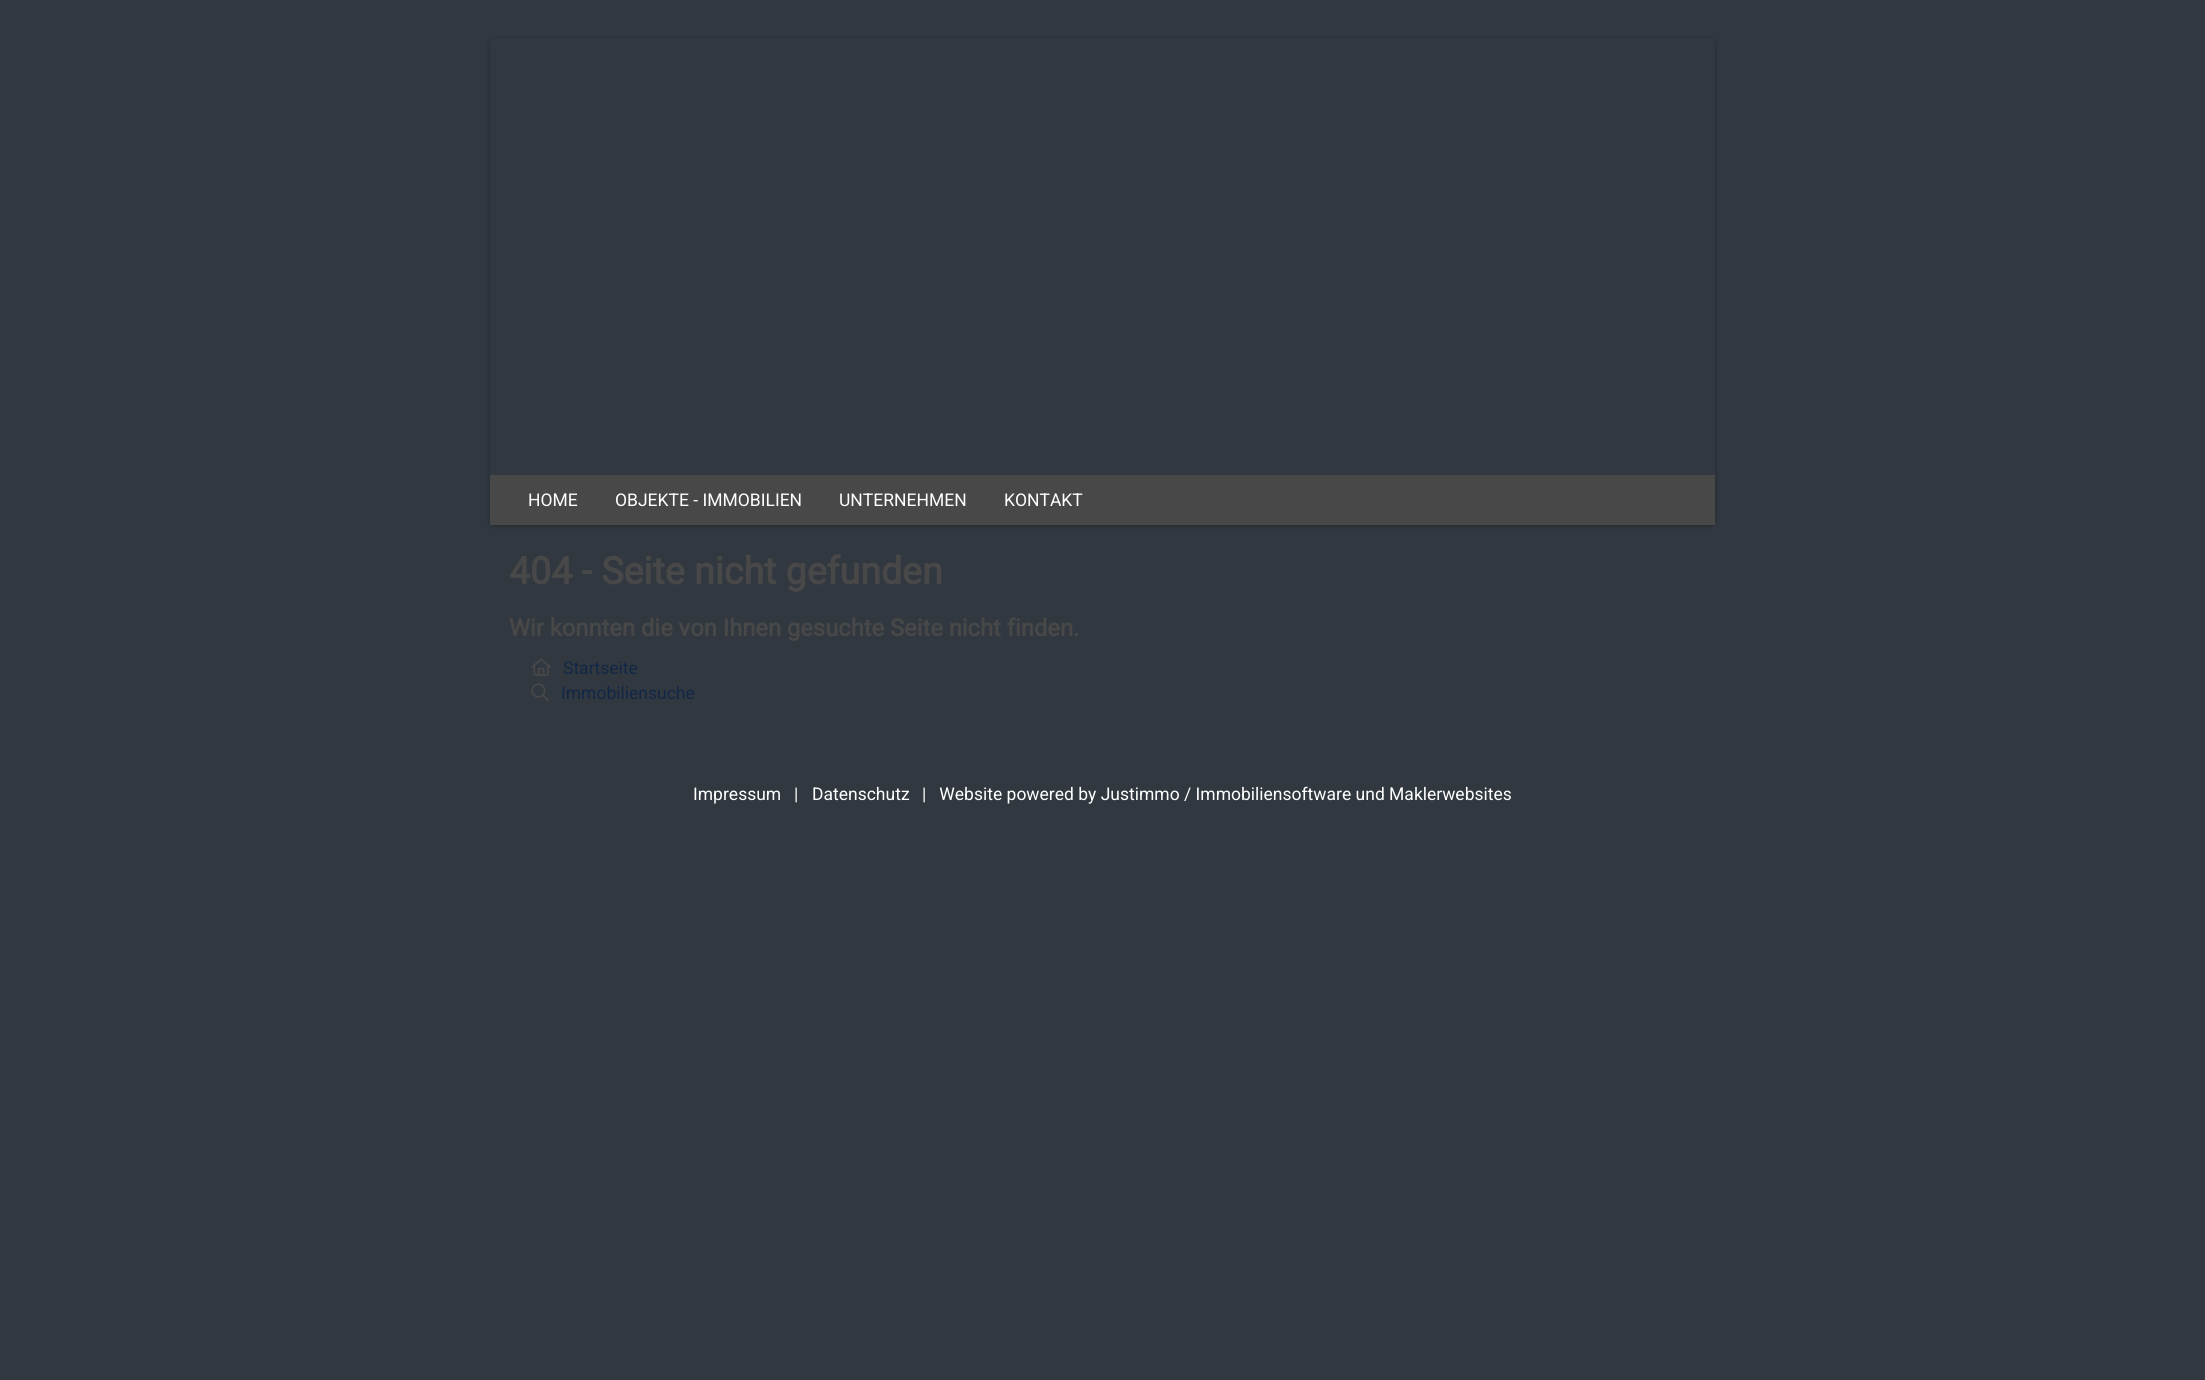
import math
import cairo

surface = cairo.ImageSurface(cairo.FORMAT_RGB24, 2205, 1380)
c = cairo.Context(surface)
options = cairo.FontOptions()
options.set_hint_metrics(cairo.HINT_METRICS_OFF)
options.set_hint_style(cairo.HINT_STYLE_NONE)
c.set_font_options(options)
c.set_miter_limit(4)
def C(code):
 c.set_source_rgb(*(v / 255 for v in bytes.fromhex(code[-6:])))
def F(family, size, italic, bold):
 c.select_font_face(family, cairo.FONT_SLANT_ITALIC if italic else cairo.FONT_SLANT_NORMAL, cairo.FONT_WEIGHT_BOLD if bold else cairo.FONT_WEIGHT_NORMAL)
 c.set_font_size(size)
def T(x, y, s):
 c.move_to(x, y)
 c.show_text(s)
def R(x, y, w, h):
 c.rectangle(x, y, w, h)
 c.fill()
def Q(x, y, w, h, r):
 c.new_sub_path()
 for i, (u, v) in enumerate([(x + w - r, y + h - r), (x + r, y + h - r), (x + r, y + r), (x + w - r, y + r)]):
  c.arc(u, v, r, i * math.pi / 2, (i + 1) * math.pi / 2)
 c.close_path()
def S(x, y, w, h, r, blur, alpha):
 c.push_group_with_content(cairo.CONTENT_ALPHA)
 c.set_operator(cairo.OPERATOR_SOURCE)
 for i in range(15, -16, -2):
  e = blur * i / 6
  if min(w, h) + 2 * e > 0:
   c.set_source_rgba(0, 0, 0, alpha * math.erfc((i - 1) / 8.5) / 2)
   Q(x - e, y - e, w + 2 * e, h + 2 * e, max(0, min(r + e + blur * .6, min(w, h) / 2 + e)))
   c.fill()
 c.mask(c.pop_group())
def I(path, x, y, w, h):
 c.save()
 c.set_source_surface(cairo.ImageSurface.create_from_png(path), x, y)
 c.rectangle(x, y, w, h)
 c.fill()
 c.restore()
C('313840')
c.paint()
c.save()
c.set_fill_rule(cairo.FILL_RULE_EVEN_ODD)
c.new_path()
c.move_to(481,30)
c.line_to(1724,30)
c.line_to(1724,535)
c.line_to(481,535)
c.close_path()
c.move_to(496,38)
c.line_to(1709,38)
c.curve_to(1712.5,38,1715,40.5,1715,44)
c.line_to(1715,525)
c.line_to(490,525)
c.line_to(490,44)
c.curve_to(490,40.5,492.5,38,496,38)
c.close_path()
c.clip()
C('000000')
S(490,39,1225,487,6,2.5,.3)
c.restore()
C('494848')
R(490,475,1225,50)
F('Roboto',17.5,0,0)
C('ffffff')
T(528,506,'HOME')
T(615,506,'OBJEKTE - IMMOBILIEN')
T(839,506,'UNTERNEHMEN')
T(1004,506,'KONTAKT')
F('Roboto',37.5,0,1)
C('484848')
T(509,584,'404 - Seite nicht gefunden')
F('Roboto',23.75,0,1)
T(509,636,'Wir konnten die von Ihnen gesuchte Seite nicht finden.')
I('1.png',531,658,20,18)
F('Roboto',17.5,0,0)
C('122746')
T(563,674,'Startseite')
I('2.png',531,683,18,18)
T(561,699,'Immobiliensuche')
C('ffffff')
T(693,800,'Impressum')
T(794,800,'|')
T(812,800,'Datenschutz')
T(922,800,'|   Website powered by Justimmo / Immobiliensoftware und Maklerwebsites')
surface.write_to_png('o.png')
